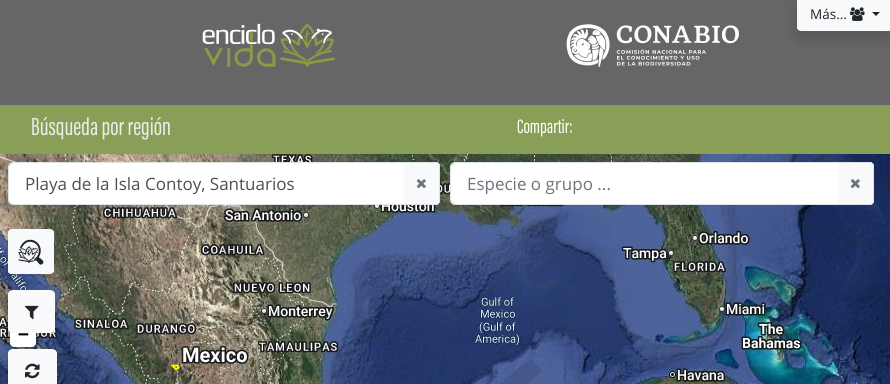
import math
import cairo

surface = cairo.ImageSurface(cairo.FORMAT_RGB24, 890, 384)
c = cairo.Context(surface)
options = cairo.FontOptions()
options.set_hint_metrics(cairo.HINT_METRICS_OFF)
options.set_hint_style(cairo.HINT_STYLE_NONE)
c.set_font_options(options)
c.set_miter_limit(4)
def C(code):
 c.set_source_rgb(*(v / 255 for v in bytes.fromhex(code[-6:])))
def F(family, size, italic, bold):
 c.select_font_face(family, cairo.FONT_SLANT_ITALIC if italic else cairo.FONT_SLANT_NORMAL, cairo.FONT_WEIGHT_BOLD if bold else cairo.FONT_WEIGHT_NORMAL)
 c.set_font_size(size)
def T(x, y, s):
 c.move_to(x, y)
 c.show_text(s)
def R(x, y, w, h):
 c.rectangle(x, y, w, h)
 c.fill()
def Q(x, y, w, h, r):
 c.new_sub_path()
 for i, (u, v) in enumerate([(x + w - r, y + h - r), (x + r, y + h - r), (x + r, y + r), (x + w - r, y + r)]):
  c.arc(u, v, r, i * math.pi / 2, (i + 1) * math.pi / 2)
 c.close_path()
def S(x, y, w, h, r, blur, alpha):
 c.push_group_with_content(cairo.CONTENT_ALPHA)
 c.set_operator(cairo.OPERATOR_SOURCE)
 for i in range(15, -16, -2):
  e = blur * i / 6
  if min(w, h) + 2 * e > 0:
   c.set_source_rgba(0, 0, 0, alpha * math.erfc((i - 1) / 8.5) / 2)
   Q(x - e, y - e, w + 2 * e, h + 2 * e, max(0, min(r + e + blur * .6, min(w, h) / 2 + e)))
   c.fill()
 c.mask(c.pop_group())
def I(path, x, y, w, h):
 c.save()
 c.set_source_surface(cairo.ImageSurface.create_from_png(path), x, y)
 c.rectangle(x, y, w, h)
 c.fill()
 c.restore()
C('666666')
c.paint()
C('000000')
S(797,5,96,34,4,8,.15)
c.save()
Q(797,-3,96,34,4)
c.clip()
gradient = cairo.LinearGradient(845,-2,845,30)
gradient.add_color_stop_rgba(0,0.976,0.98,0.984,1)
gradient.add_color_stop_rgba(1,0.973,0.976,0.98,1)
c.set_source(gradient)
R(797,0,93,30)
c.restore()
Q(797.5,-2.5,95,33,3.5)
C('f8f9fa')
c.set_line_width(1)
c.stroke()
F('Open Sans',13.5,0,0)
C('212529')
T(810,19,'Más...')
I('1.png',850,7,15,14)
c.new_path()
c.move_to(872,12)
c.line_to(880,12)
c.line_to(876,16)
c.close_path()
c.fill()
I('2.png',202,23,130,22)
I('3.png',204,24,131,43)
I('4.png',566,24,173,43)
C('899f57')
R(0,105,890,49)
F('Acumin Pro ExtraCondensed',25.5,0,0)
C('ececec')
T(31,135,'Búsqueda por región')
F('Acumin Pro ExtraCondensed',20,0,0)
C('ffffff')
T(517,133,'Compartir:')
I('9.png',0,154,243,230)
I('10.png',243,154,256,230)
c.new_path()
c.move_to(13,163)
c.line_to(405,163)
c.line_to(405,204)
c.line_to(13,204)
c.curve_to(11,204,9,202,9,200)
c.line_to(9,167)
c.curve_to(9,165,11,163,13,163)
c.close_path()
c.fill()
C('dee2e6')
c.set_fill_rule(cairo.FILL_RULE_EVEN_ODD)
c.new_path()
c.move_to(13,162)
c.line_to(405,162)
c.line_to(405,205)
c.line_to(13,205)
c.curve_to(10,205,8,203,8,200)
c.line_to(8,167)
c.curve_to(8,164,10,162,13,162)
c.close_path()
c.move_to(13,163)
c.line_to(405,163)
c.line_to(405,204)
c.line_to(13,204)
c.curve_to(11,204,9,202,9,200)
c.line_to(9,167)
c.curve_to(9,165,11,163,13,163)
c.close_path()
c.fill()
F('Open Sans',17,0,0)
C('495057')
T(25,190,'Playa de la Isla Contoy, Santuarios')
C('f8f9fa')
c.new_path()
c.move_to(404,162)
c.line_to(436,162)
c.curve_to(438,162,440,164,440,166)
c.line_to(440,201)
c.curve_to(440,203,438,205,436,205)
c.line_to(404,205)
c.close_path()
c.fill()
C('dee2e6')
c.new_path()
c.move_to(404,162)
c.line_to(436,162)
c.curve_to(438,162,440,164,440,166)
c.line_to(440,201)
c.curve_to(440,203,438,205,436,205)
c.line_to(404,205)
c.close_path()
c.move_to(404,163)
c.line_to(436,163)
c.curve_to(438,163,439,164,439,166)
c.line_to(439,201)
c.curve_to(439,203,438,204,436,204)
c.line_to(404,204)
c.close_path()
c.fill()
I('5.png',416,179,10,10)
I('11.png',499,154,256,230)
I('12.png',755,154,135,230)
C('ffffff')
c.new_path()
c.move_to(455,163)
c.line_to(839,163)
c.line_to(839,204)
c.line_to(455,204)
c.curve_to(453,204,451,202,451,200)
c.line_to(451,167)
c.curve_to(451,165,453,163,455,163)
c.close_path()
c.fill()
C('dee2e6')
c.new_path()
c.move_to(455,162)
c.line_to(839,162)
c.line_to(839,205)
c.line_to(455,205)
c.curve_to(452,205,450,203,450,200)
c.line_to(450,167)
c.curve_to(450,164,452,162,455,162)
c.close_path()
c.move_to(455,163)
c.line_to(839,163)
c.line_to(839,204)
c.line_to(455,204)
c.curve_to(453,204,451,202,451,200)
c.line_to(451,167)
c.curve_to(451,165,453,163,455,163)
c.close_path()
c.fill()
C('6c757d')
T(467,190,'Especie o grupo ...')
C('f8f9fa')
c.new_path()
c.move_to(838,162)
c.line_to(870,162)
c.curve_to(872,162,874,164,874,166)
c.line_to(874,201)
c.curve_to(874,203,872,205,870,205)
c.line_to(838,205)
c.close_path()
c.fill()
C('dee2e6')
c.new_path()
c.move_to(838,162)
c.line_to(870,162)
c.curve_to(872,162,874,164,874,166)
c.line_to(874,201)
c.curve_to(874,203,872,205,870,205)
c.line_to(838,205)
c.close_path()
c.move_to(838,163)
c.line_to(870,163)
c.curve_to(872,163,873,164,873,166)
c.line_to(873,201)
c.curve_to(873,203,872,204,870,204)
c.line_to(838,204)
c.close_path()
c.fill()
I('5.png',850,179,10,10)
I('13.png',0,205,543,179)
c.save()
c.set_fill_rule(cairo.FILL_RULE_WINDING)
Q(8,229,46,45,4)
c.clip()
gradient = cairo.LinearGradient(31,230,31,273)
gradient.add_color_stop_rgba(0,0.976,0.98,0.984,1)
gradient.add_color_stop_rgba(1,0.973,0.976,0.98,1)
c.set_source(gradient)
R(8,230,46,43)
c.restore()
Q(8.5,229.5,45,44,3.5)
C('f8f9fa')
c.stroke()
I('6.png',18,239,26,26)
C('000000')
S(10,296,26,52,4,2.5,.65)
C('ffffff')
c.new_path()
c.move_to(10,321)
c.line_to(36,321)
c.line_to(36,343)
c.curve_to(36,345,34,347,32,347)
c.line_to(14,347)
c.curve_to(12,347,10,345,10,343)
c.close_path()
c.fill()
c.save()
c.set_fill_rule(cairo.FILL_RULE_WINDING)
Q(8,290,47,43,5)
c.clip()
gradient = cairo.LinearGradient(31,291,32,332)
gradient.add_color_stop_rgba(0,0.976,0.98,0.984,1)
gradient.add_color_stop_rgba(1,0.973,0.976,0.98,1)
c.set_source(gradient)
R(8,291,47,41)
c.restore()
Q(8.5,290.5,46,42,4.5)
C('f8f9fa')
c.stroke()
I('7.png',25,305,14,15)
C('000000')
S(10,358,26,26,4,2.5,.65)
c.save()
c.set_fill_rule(cairo.FILL_RULE_WINDING)
Q(8,349,49,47,5)
c.clip()
gradient = cairo.LinearGradient(33,350,33,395)
gradient.add_color_stop_rgba(0,0.976,0.98,0.984,1)
gradient.add_color_stop_rgba(1,0.973,0.976,0.98,1)
c.set_source(gradient)
R(8,350,49,34)
c.restore()
Q(8.5,349.5,48,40,4.5)
C('f8f9fa')
c.stroke()
I('8.png',25,363,15,16)
c.new_path()
c.move_to(178.5,367.5)
c.line_to(176,369.5)
c.line_to(172.5,365.5)
c.line_to(178,365.5)
c.line_to(178,367)
c.close_path()
C('ffef00')
c.set_line_width(2)
c.set_line_cap(cairo.LINE_CAP_ROUND)
c.set_line_join(cairo.LINE_JOIN_ROUND)
c.stroke()
F('DejaVu Sans Mono',18,0,1)
C('000000')
T(18,340,'−')
surface.write_to_png('o.png')
